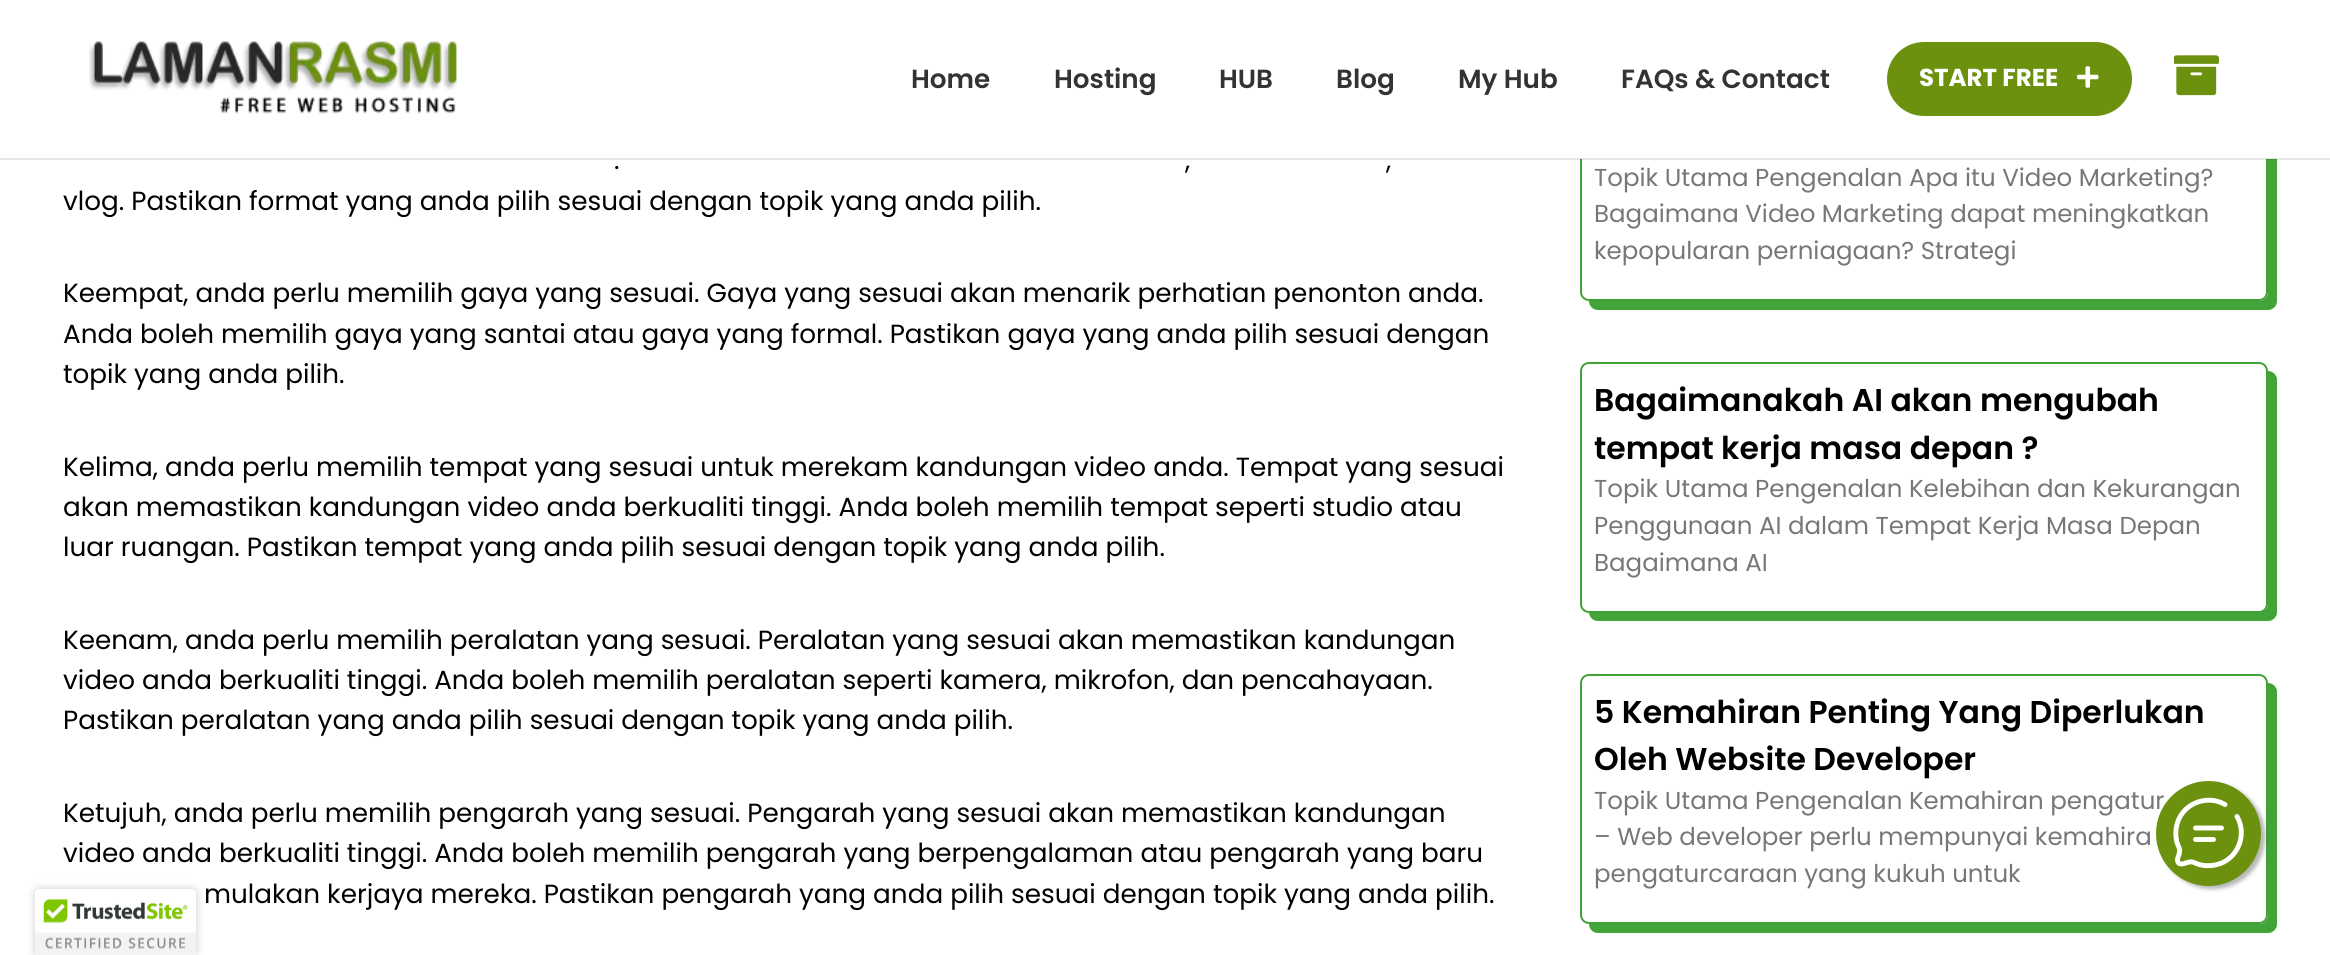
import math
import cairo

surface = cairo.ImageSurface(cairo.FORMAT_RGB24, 2330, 955)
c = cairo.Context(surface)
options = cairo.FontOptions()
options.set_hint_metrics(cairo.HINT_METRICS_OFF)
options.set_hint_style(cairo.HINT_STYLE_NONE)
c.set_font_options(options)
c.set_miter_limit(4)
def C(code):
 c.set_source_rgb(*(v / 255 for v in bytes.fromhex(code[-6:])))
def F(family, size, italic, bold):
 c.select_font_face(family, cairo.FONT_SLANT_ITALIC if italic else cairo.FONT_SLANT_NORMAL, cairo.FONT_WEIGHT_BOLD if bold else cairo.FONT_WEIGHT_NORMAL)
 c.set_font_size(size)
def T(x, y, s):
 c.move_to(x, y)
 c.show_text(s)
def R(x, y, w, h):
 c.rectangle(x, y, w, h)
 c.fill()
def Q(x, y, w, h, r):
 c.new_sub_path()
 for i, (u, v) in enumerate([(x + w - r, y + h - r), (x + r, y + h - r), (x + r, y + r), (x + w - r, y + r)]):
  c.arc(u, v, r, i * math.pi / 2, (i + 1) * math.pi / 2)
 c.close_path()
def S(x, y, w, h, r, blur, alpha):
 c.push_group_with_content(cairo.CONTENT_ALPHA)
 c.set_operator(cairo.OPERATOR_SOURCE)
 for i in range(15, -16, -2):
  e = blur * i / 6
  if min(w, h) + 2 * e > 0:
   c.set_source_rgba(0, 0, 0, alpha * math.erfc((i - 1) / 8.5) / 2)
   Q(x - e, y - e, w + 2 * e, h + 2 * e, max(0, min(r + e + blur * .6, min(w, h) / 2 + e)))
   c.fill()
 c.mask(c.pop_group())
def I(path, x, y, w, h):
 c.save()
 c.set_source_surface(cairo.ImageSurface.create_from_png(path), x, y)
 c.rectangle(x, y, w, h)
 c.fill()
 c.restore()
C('ffffff')
c.paint()
C('41a338')
c.new_path()
c.move_to(1589,301)
c.curve_to(1589,306,1593,310,1598,310)
c.line_to(2268,310)
c.curve_to(2273,310,2277,306,2277,301)
c.line_to(2277,21)
c.curve_to(2277,16,2273,12,2268,12)
c.line_to(2268,292)
c.curve_to(2268,297,2264,301,2259,301)
c.close_path()
c.fill()
Q(1581,5,686,295,8)
c.set_source_rgba(0.247,0.635,0.212,0.99)
c.stroke()
C('ffffff')
R(1580,4,697,155)
c.set_source_rgba(0.008,0.004,0.004,0.1)
R(0,158,2330,2)
I('1.png',89,41,368,73)
F('Poppins SemiBold',26.25,0,0)
C('333333')
T(911,88,'Home')
T(1054,88,'Hosting')
T(1219,88,'HUB')
T(1336,88,'Blog')
T(1458,88,'My Hub')
T(1621,88,'FAQs & Contact')
C('6b910f')
Q(1889.5,44.5,240,69,34.5)
c.fill_preserve()
c.set_line_width(5)
c.stroke()
F('Poppins',24.5,0,1)
C('ffffff')
T(1919,86,'START FREE')
I('2.png',2077,66,22,22)
I('3.png',2174,55,45,41)
F('Poppins',26.25,0,0)
C('000000')
T(614,169,'.')
T(1185,169,',')
T(1386,169,',')
T(63,210,'vlog. Pastikan format yang anda pilih sesuai dengan topik yang anda pilih.')
T(63,302,'Keempat, anda perlu memilih gaya yang sesuai. Gaya yang sesuai akan menarik perhatian penonton anda.')
T(63,343,'Anda boleh memilih gaya yang santai atau gaya yang formal. Pastikan gaya yang anda pilih sesuai dengan')
T(63,383,'topik yang anda pilih.')
T(63,476,'Kelima, anda perlu memilih tempat yang sesuai untuk merekam kandungan video anda. Tempat yang sesuai')
T(63,516,'akan memastikan kandungan video anda berkualiti tinggi. Anda boleh memilih tempat seperti studio atau')
T(63,556,'luar ruangan. Pastikan tempat yang anda pilih sesuai dengan topik yang anda pilih.')
T(63,649,'Keenam, anda perlu memilih peralatan yang sesuai. Peralatan yang sesuai akan memastikan kandungan')
T(63,689,'video anda berkualiti tinggi. Anda boleh memilih peralatan seperti kamera, mikrofon, dan pencahayaan.')
T(63,729,'Pastikan peralatan yang anda pilih sesuai dengan topik yang anda pilih.')
T(63,822,'Ketujuh, anda perlu memilih pengarah yang sesuai. Pengarah yang sesuai akan memastikan kandungan')
T(63,862,'video anda berkualiti tinggi. Anda boleh memilih pengarah yang berpengalaman atau pengarah yang baru')
T(204,903,'mulakan kerjaya mereka. Pastikan pengarah yang anda pilih sesuai dengan topik yang anda pilih.')
F('Poppins',24.5,0,0)
C('777777')
T(1594,186,'Topik Utama Pengenalan Apa itu Video Marketing?')
T(1594,222,'Bagaimana Video Marketing dapat meningkatkan')
T(1594,259,'kepopularan perniagaan? Strategi')
C('41a338')
c.new_path()
c.move_to(1589,612)
c.curve_to(1589,617,1593,621,1598,621)
c.line_to(2268,621)
c.curve_to(2273,621,2277,617,2277,612)
c.line_to(2277,380)
c.curve_to(2277,375,2273,371,2268,371)
c.line_to(2268,604)
c.curve_to(2268,609,2264,612,2259,612)
c.close_path()
c.fill()
Q(1581,363,686,249,8)
c.set_source_rgba(0.247,0.635,0.212,0.99)
c.set_line_width(2)
c.stroke()
F('Poppins SemiBold',31.5,0,0)
C('000000')
T(1594,411,'Bagaimanakah AI akan mengubah')
T(1594,459,'tempat kerja masa depan ?')
F('Poppins',24.5,0,0)
C('777777')
T(1594,497,'Topik Utama Pengenalan Kelebihan dan Kekurangan')
T(1594,534,'Penggunaan AI dalam Tempat Kerja Masa Depan')
T(1594,571,'Bagaimana AI')
C('41a338')
c.new_path()
c.move_to(1589,924)
c.curve_to(1589,929,1593,933,1598,933)
c.line_to(2268,933)
c.curve_to(2273,933,2277,929,2277,924)
c.line_to(2277,692)
c.curve_to(2277,687,2273,683,2268,683)
c.line_to(2268,915)
c.curve_to(2268,920,2264,924,2259,924)
c.close_path()
c.fill()
Q(1581,675,686,248,8)
c.set_source_rgba(0.247,0.635,0.212,0.99)
c.stroke()
F('Poppins SemiBold',31.5,0,0)
C('000000')
T(1594,723,'5 Kemahiran Penting Yang Diperlukan')
T(1594,770,'Oleh Website Developer')
F('Poppins',24.5,0,0)
C('777777')
T(1594,809,'Topik Utama Pengenalan Kemahiran pengatur')
T(1594,845,'– Web developer perlu mempunyai kemahira')
T(1594,882,'pengaturcaraan yang kukuh untuk')
C('333333')
S(2160,784,105,105,52.5,2,.2)
S(2160,784,105,105,52.5,2,.2)
C('6b910f')
c.arc(2208.5,833.5,52.5,0,2 * math.pi)
c.fill()
c.new_path()
c.move_to(2195.5,828)
c.line_to(2221.5,828)
c.move_to(2195.5,839.5)
c.line_to(2213.5,839.5)
C('ffffff')
c.set_line_width(4.9)
c.set_line_cap(cairo.LINE_CAP_ROUND)
c.stroke()
c.new_path()
c.move_to(2225,804.5)
c.curve_to(2206,793.5,2180.5,804.5,2176.5,826.5)
c.curve_to(2175.5,831.5,2175.5,837,2177,842.5)
c.curve_to(2179,848.5,2180.5,848,2179,854.5)
c.curve_to(2178,857,2176.5,860.5,2178.5,863)
c.curve_to(2181,865,2184.5,863.5,2187,862.5)
c.curve_to(2193.5,861,2193,862.5,2199,864.5)
c.curve_to(2204.5,866,2210,866,2215,865)
c.curve_to(2237,861,2248,835.5,2237,816.5)
c.stroke()
C('000000')
S(35,889,161,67,4,4.5,.2)
I('4.png',35,889,161,66)
surface.write_to_png('o.png')
